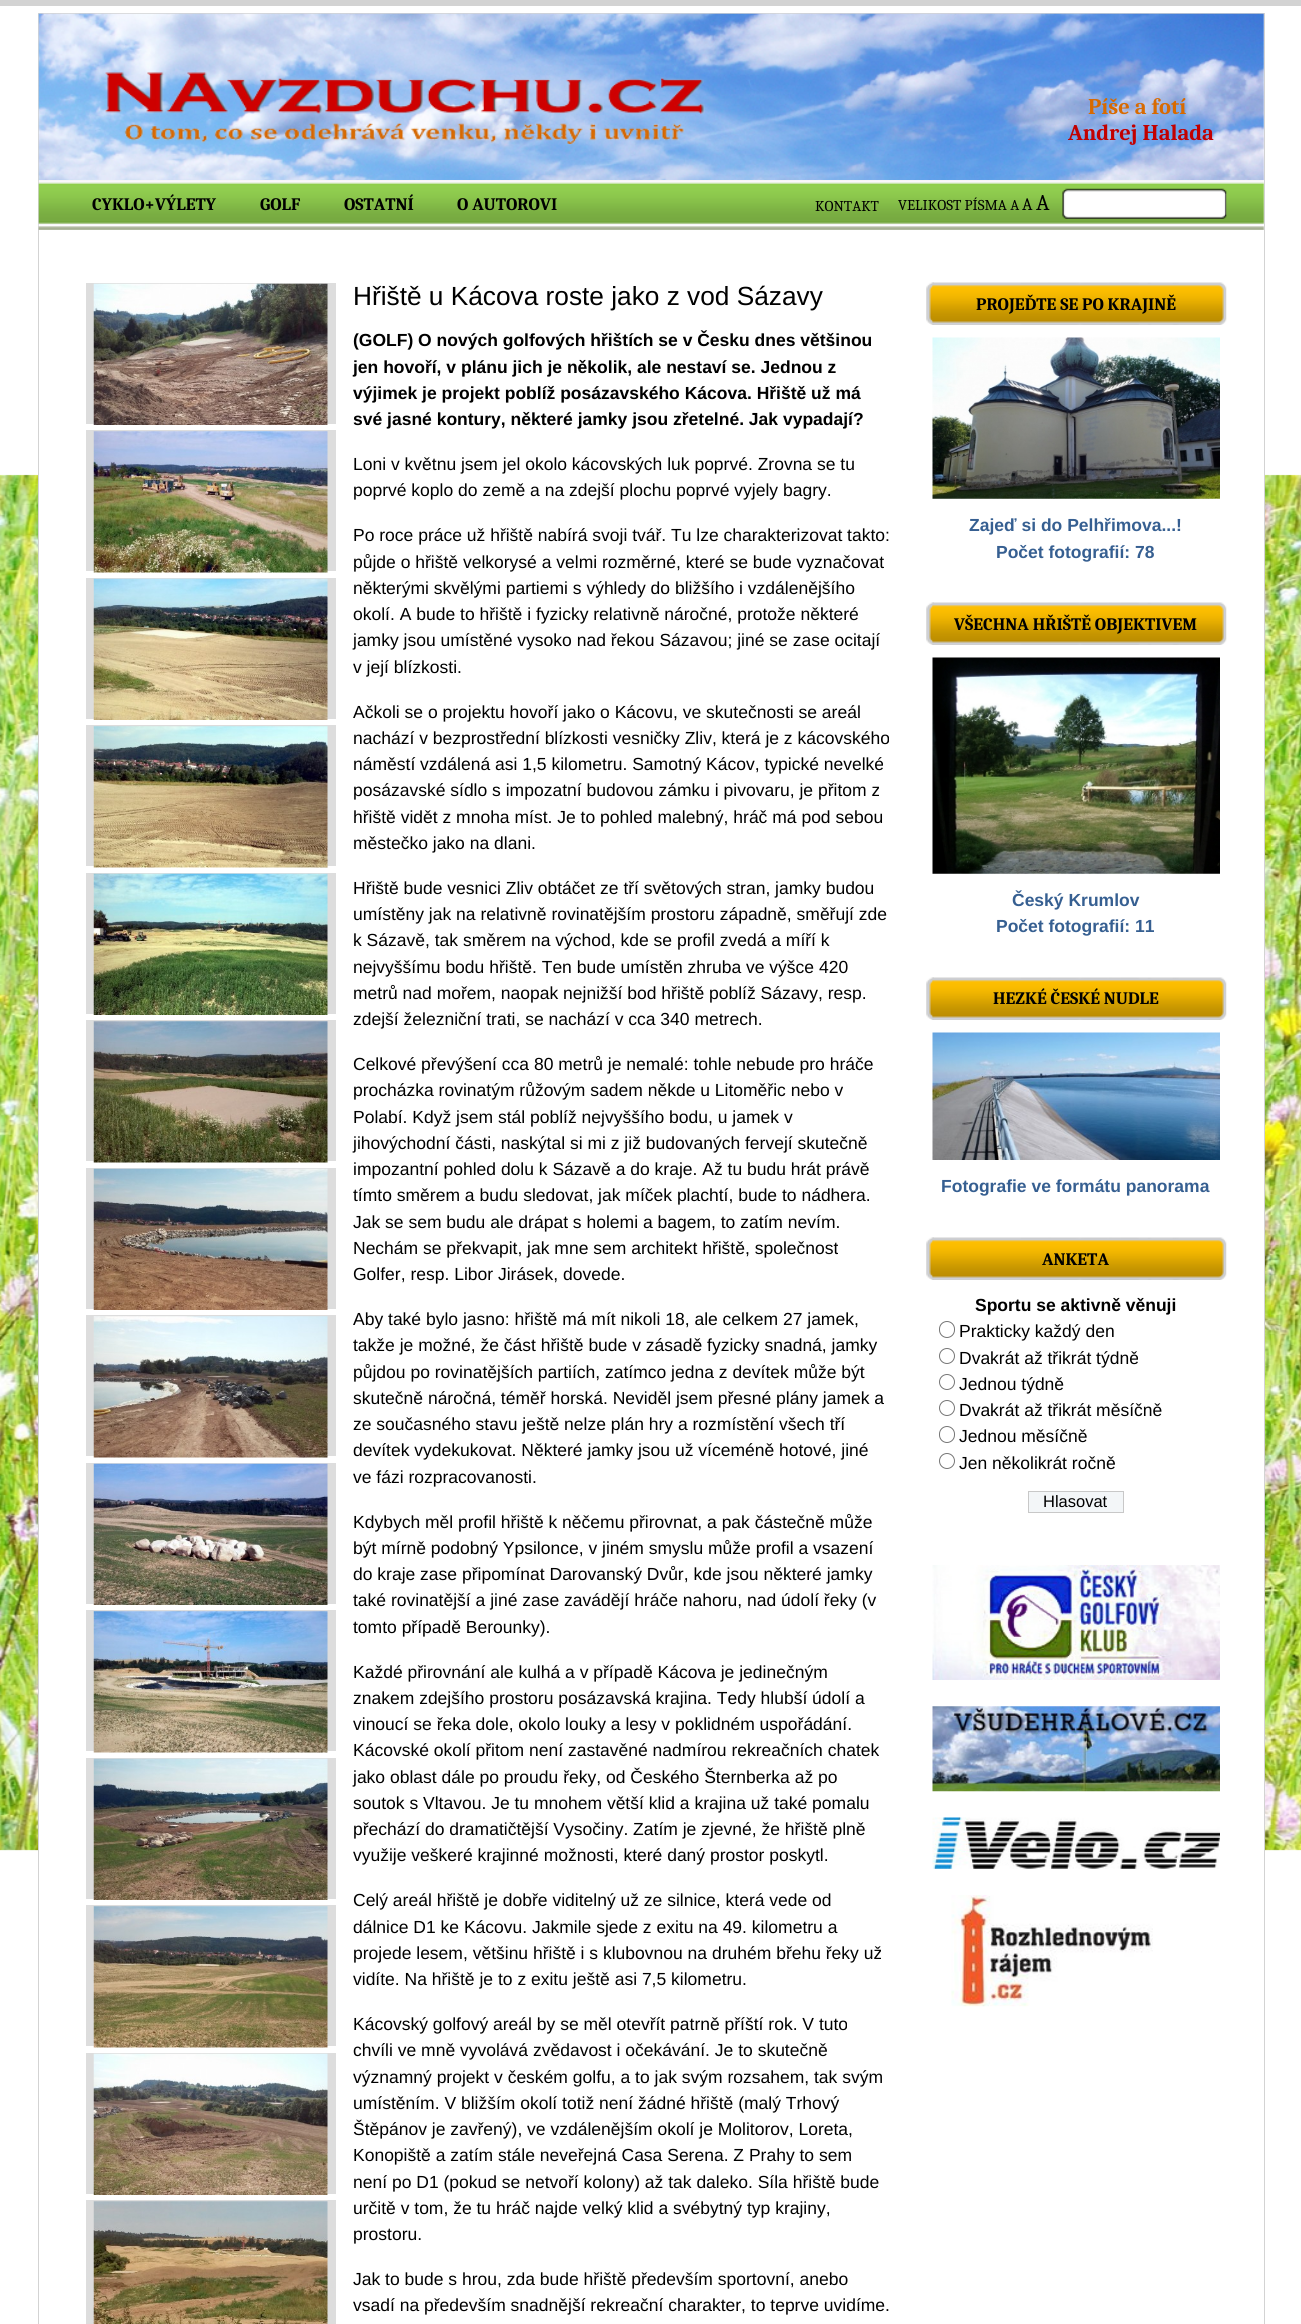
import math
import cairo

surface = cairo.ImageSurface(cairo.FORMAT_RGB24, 1301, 2324)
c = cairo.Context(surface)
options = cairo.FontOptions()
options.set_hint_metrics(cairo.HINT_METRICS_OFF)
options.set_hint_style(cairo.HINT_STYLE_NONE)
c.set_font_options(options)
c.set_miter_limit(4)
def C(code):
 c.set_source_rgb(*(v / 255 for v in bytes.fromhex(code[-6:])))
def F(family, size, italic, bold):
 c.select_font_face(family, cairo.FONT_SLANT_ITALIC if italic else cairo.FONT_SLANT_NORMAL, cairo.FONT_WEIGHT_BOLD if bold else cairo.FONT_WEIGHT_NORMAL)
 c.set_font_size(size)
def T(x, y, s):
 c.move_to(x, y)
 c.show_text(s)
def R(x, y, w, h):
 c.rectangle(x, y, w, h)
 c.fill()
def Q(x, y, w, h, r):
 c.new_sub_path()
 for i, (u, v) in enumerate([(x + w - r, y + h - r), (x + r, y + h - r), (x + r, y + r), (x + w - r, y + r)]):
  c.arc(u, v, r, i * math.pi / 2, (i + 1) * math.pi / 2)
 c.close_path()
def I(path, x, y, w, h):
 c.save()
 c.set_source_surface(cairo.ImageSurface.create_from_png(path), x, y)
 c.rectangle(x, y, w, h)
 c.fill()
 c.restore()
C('ffffff')
c.paint()
I('1.png',0,474,1301,1377)
C('d3d3d3')
R(0,0,1301,6)
C('ffffff')
R(39,474,1225,1377)
c.rectangle(38.5,13.5,1226,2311)
C('d3d3d3')
c.set_line_width(1)
c.stroke()
I('2.png',38,13,1226,167)
I('3.png',105,72,600,73)
F('Caladea',22.5,0,1)
C('d86a00')
T(1088,114,'Píše a fotí')
C('c20000')
T(1068,140,'Andrej Halada')
I('4.png',38,180,1226,50)
F('Caladea',17.5,0,1)
C('000000')
T(92,210,'CYKLO+VÝLETY')
T(260,210,'GOLF')
T(344,210,'OSTATNÍ')
T(457,210,'O AUTOROVI')
F('Caladea',15,0,0)
T(815,211,'KONTAKT')
T(898,210,'VELIKOST PÍSMA A')
F('Caladea',17.5,0,0)
T(1022,210,'A')
F('Caladea',22.5,0,0)
T(1036,210,'A')
I('5.png',1062,188,165,31)
C('dddddd')
R(86,283,250,141)
I('6.png',93,283,235,142)
R(86,430,250,141)
I('7.png',93,431,235,142)
R(86,578,250,141)
I('8.png',93,578,235,142)
R(86,725,250,141)
I('9.png',93,726,235,142)
R(86,873,250,141)
I('10.png',93,873,235,142)
R(86,1020,250,141)
I('11.png',93,1021,235,142)
R(86,1168,250,141)
I('12.png',93,1168,235,142)
R(86,1315,250,141)
I('13.png',93,1316,235,142)
R(86,1463,250,141)
I('14.png',93,1463,235,142)
R(86,1610,250,141)
I('15.png',93,1611,235,142)
R(86,1758,250,141)
I('16.png',93,1758,235,142)
R(86,1905,250,141)
I('17.png',93,1906,235,142)
R(86,2053,250,141)
I('18.png',93,2053,235,142)
R(86,2200,250,124)
I('19.png',93,2201,235,123)
F('Liberation Sans',26.25,0,0)
C('000000')
T(353,305,'Hřiště u Kácova roste jako z vod Sázavy')
F('Liberation Sans',17.5,0,1)
T(353,346,'(GOLF) O nových golfových hřištích se v Česku dnes většinou')
T(353,373,'jen hovoří, v plánu jich je několik, ale nestaví se. Jednou z')
T(353,399,'výjimek je projekt poblíž posázavského Kácova. Hřiště už má')
T(353,425,'své jasné kontury, některé jamky jsou zřetelné. Jak vypadají?')
F('Liberation Sans',17.5,0,0)
T(353,470,'Loni v květnu jsem jel okolo kácovských luk poprvé. Zrovna se tu')
T(353,496,'poprvé koplo do země a na zdejší plochu poprvé vyjely bagry.')
T(353,541,'Po roce práce už hřiště nabírá svoji tvář. Tu lze charakterizovat takto:')
T(353,568,'půjde o hřiště velkorysé a velmi rozměrné, které se bude vyznačovat')
T(353,594,'některými skvělými partiemi s výhledy do bližšího i vzdálenějšího')
T(353,620,'okolí. A bude to hřiště i fyzicky relativně náročné, protože některé')
T(353,646,'jamky jsou umístěné vysoko nad řekou Sázavou; jiné se zase ocitají')
T(353,673,'v její blízkosti.')
T(353,718,'Ačkoli se o projektu hovoří jako o Kácovu, ve skutečnosti se areál')
T(353,744,'nachází v bezprostřední blízkosti vesničky Zliv, která je z kácovského')
T(353,770,'náměstí vzdálená asi 1,5 kilometru. Samotný Kácov, typické nevelké')
T(353,796,'posázavské sídlo s impozatní budovou zámku i pivovaru, je přitom z')
T(353,823,'hřiště vidět z mnoha míst. Je to pohled malebný, hráč má pod sebou')
T(353,849,'městečko jako na dlani.')
T(353,894,'Hřiště bude vesnici Zliv obtáčet ze tří světových stran, jamky budou')
T(353,920,'umístěny jak na relativně rovinatějším prostoru západně, směřují zde')
T(353,946,'k Sázavě, tak směrem na východ, kde se profil zvedá a míří k')
T(353,973,'nejvyššímu bodu hřiště. Ten bude umístěn zhruba ve výšce 420')
T(353,999,'metrů nad mořem, naopak nejnižší bod hřiště poblíž Sázavy, resp.')
T(353,1025,'zdejší železniční trati, se nachází v cca 340 metrech.')
T(353,1070,'Celkové převýšení cca 80 metrů je nemalé: tohle nebude pro hráče')
T(353,1096,'procházka rovinatým růžovým sadem někde u Litoměřic nebo v')
T(353,1123,'Polabí. Když jsem stál poblíž nejvyššího bodu, u jamek v')
T(353,1149,'jihovýchodní části, naskýtal si mi z již budovaných fervejí skutečně')
T(353,1175,'impozantní pohled dolu k Sázavě a do kraje. Až tu budu hrát právě')
T(353,1201,'tímto směrem a budu sledovat, jak míček plachtí, bude to nádhera.')
T(353,1228,'Jak se sem budu ale drápat s holemi a bagem, to zatím nevím.')
T(353,1254,'Nechám se překvapit, jak mne sem architekt hřiště, společnost')
T(353,1280,'Golfer, resp. Libor Jirásek, dovede.')
T(353,1325,'Aby také bylo jasno: hřiště má mít nikoli 18, ale celkem 27 jamek,')
T(353,1351,'takže je možné, že část hřiště bude v zásadě fyzicky snadná, jamky')
T(353,1378,'půjdou po rovinatějších partiích, zatímco jedna z devítek může být')
T(353,1404,'skutečně náročná, téměř horská. Neviděl jsem přesné plány jamek a')
T(353,1430,'ze současného stavu ještě nelze plán hry a rozmístění všech tří')
T(353,1456,'devítek vydekukovat. Některé jamky jsou už víceméně hotové, jiné')
T(353,1483,'ve fázi rozpracovanosti.')
T(353,1528,'Kdybych měl profil hřiště k něčemu přirovnat, a pak částečně může')
T(353,1554,'být mírně podobný Ypsilonce, v jiném smyslu může profil a vsazení')
T(353,1580,'do kraje zase připomínat Darovanský Dvůr, kde jsou některé jamky')
T(353,1606,'také rovinatější a jiné zase zavádějí hráče nahoru, nad údolí řeky (v')
T(353,1633,'tomto případě Berounky).')
T(353,1678,'Každé přirovnání ale kulhá a v případě Kácova je jedinečným')
T(353,1704,'znakem zdejšího prostoru posázavská krajina. Tedy hlubší údolí a')
T(353,1730,'vinoucí se řeka dole, okolo louky a lesy v poklidném uspořádání.')
T(353,1756,'Kácovské okolí přitom není zastavěné nadmírou rekreačních chatek')
T(353,1783,'jako oblast dále po proudu řeky, od Českého Šternberka až po')
T(353,1809,'soutok s Vltavou. Je tu mnohem větší klid a krajina už také pomalu')
T(353,1835,'přechází do dramatičtější Vysočiny. Zatím je zjevné, že hřiště plně')
T(353,1861,'využije veškeré krajinné možnosti, které daný prostor poskytl.')
T(353,1906,'Celý areál hřiště je dobře viditelný už ze silnice, která vede od')
T(353,1933,'dálnice D1 ke Kácovu. Jakmile sjede z exitu na 49. kilometru a')
T(353,1959,'projede lesem, většinu hřiště i s klubovnou na druhém břehu řeky už')
T(353,1985,'vidíte. Na hřiště je to z exitu ještě asi 7,5 kilometru.')
T(353,2030,'Kácovský golfový areál by se měl otevřít patrně příští rok. V tuto')
T(353,2056,'chvíli ve mně vyvolává zvědavost i očekávání. Je to skutečně')
T(353,2083,'významný projekt v českém golfu, a to jak svým rozsahem, tak svým')
T(353,2109,'umístěním. V bližším okolí totiž není žádné hřiště (malý Trhový')
T(353,2135,'Štěpánov je zavřený), ve vzdálenějším okolí je Molitorov, Loreta,')
T(353,2161,'Konopiště a zatím stále neveřejná Casa Serena. Z Prahy to sem')
T(353,2188,'není po D1 (pokud se netvoří kolony) až tak daleko. Síla hřiště bude')
T(353,2214,'určitě v tom, že tu hráč najde velký klid a svébytný typ krajiny,')
T(353,2240,'prostoru.')
T(353,2285,'Jak to bude s hrou, zda bude hřiště především sportovní, anebo')
T(353,2311,'vsadí na především snadnější rekreační charakter, to teprve uvidíme.')
I('20.png',926,282,8,43)
I('21.png',932,282,295,43)
F('Caladea',17.5,0,1)
T(976,310,'PROJEĎTE SE PO KRAJINĚ')
I('22.png',932,337,288,162)
F('Liberation Sans',17.5,0,1)
C('365f91')
T(969,531,'Zajeď si do Pelhřimova...!')
T(996,558,'Počet fotografií: 78')
I('23.png',926,602,8,43)
I('24.png',932,602,295,43)
F('Caladea',17.5,0,1)
C('000000')
T(954,630,'VŠECHNA HŘIŠTĚ OBJEKTIVEM')
I('25.png',932,657,288,217)
F('Liberation Sans',17.5,0,1)
C('365f91')
T(1012,906,'Český Krumlov')
T(996,932,'Počet fotografií: 11')
I('23.png',926,977,8,43)
I('24.png',932,977,295,43)
F('Caladea',17.5,0,1)
C('000000')
T(993,1004,'HEZKÉ ČESKÉ NUDLE')
I('26.png',932,1032,288,128)
F('Liberation Sans',17.5,0,1)
C('365f91')
T(941,1192,'Fotografie ve formátu panorama')
I('23.png',926,1237,8,43)
I('24.png',932,1237,295,43)
F('Caladea',17.5,0,1)
C('000000')
T(1042,1265,'ANKETA')
F('Liberation Sans',17.5,0,1)
T(975,1311,'Sportu se aktivně věnuji')
Q(939.5,1321.5,15,16,7.5)
C('767676')
c.stroke()
F('Liberation Sans',17.5,0,0)
C('000000')
T(959,1337,'Prakticky každý den')
c.new_path()
c.arc(947,1356,7.5,0,2 * math.pi)
C('767676')
c.stroke()
C('000000')
T(959,1364,'Dvakrát až třikrát týdně')
c.new_path()
c.arc(947,1382,7.5,0,2 * math.pi)
C('767676')
c.stroke()
C('000000')
T(959,1390,'Jednou týdně')
c.new_path()
c.arc(947,1408,7.5,0,2 * math.pi)
C('767676')
c.stroke()
C('000000')
T(959,1416,'Dvakrát až třikrát měsíčně')
Q(939.5,1426.5,15,16,7.5)
C('767676')
c.stroke()
C('000000')
T(959,1442,'Jednou měsíčně')
c.new_path()
c.arc(947,1461,7.5,0,2 * math.pi)
C('767676')
c.stroke()
C('000000')
T(959,1469,'Jen několikrát ročně')
C('f3f6f8')
c.rectangle(1028.5,1491.5,95,21)
c.fill_preserve()
C('c8c8c8')
c.stroke()
F('Liberation Sans',16.5,0,0)
C('000000')
T(1043,1507,'Hlasovat')
I('27.png',932,1565,288,115)
I('28.png',932,1706,288,86)
I('29.png',932,1817,288,52)
I('30.png',951,1895,202,112)
surface.write_to_png('o.png')
